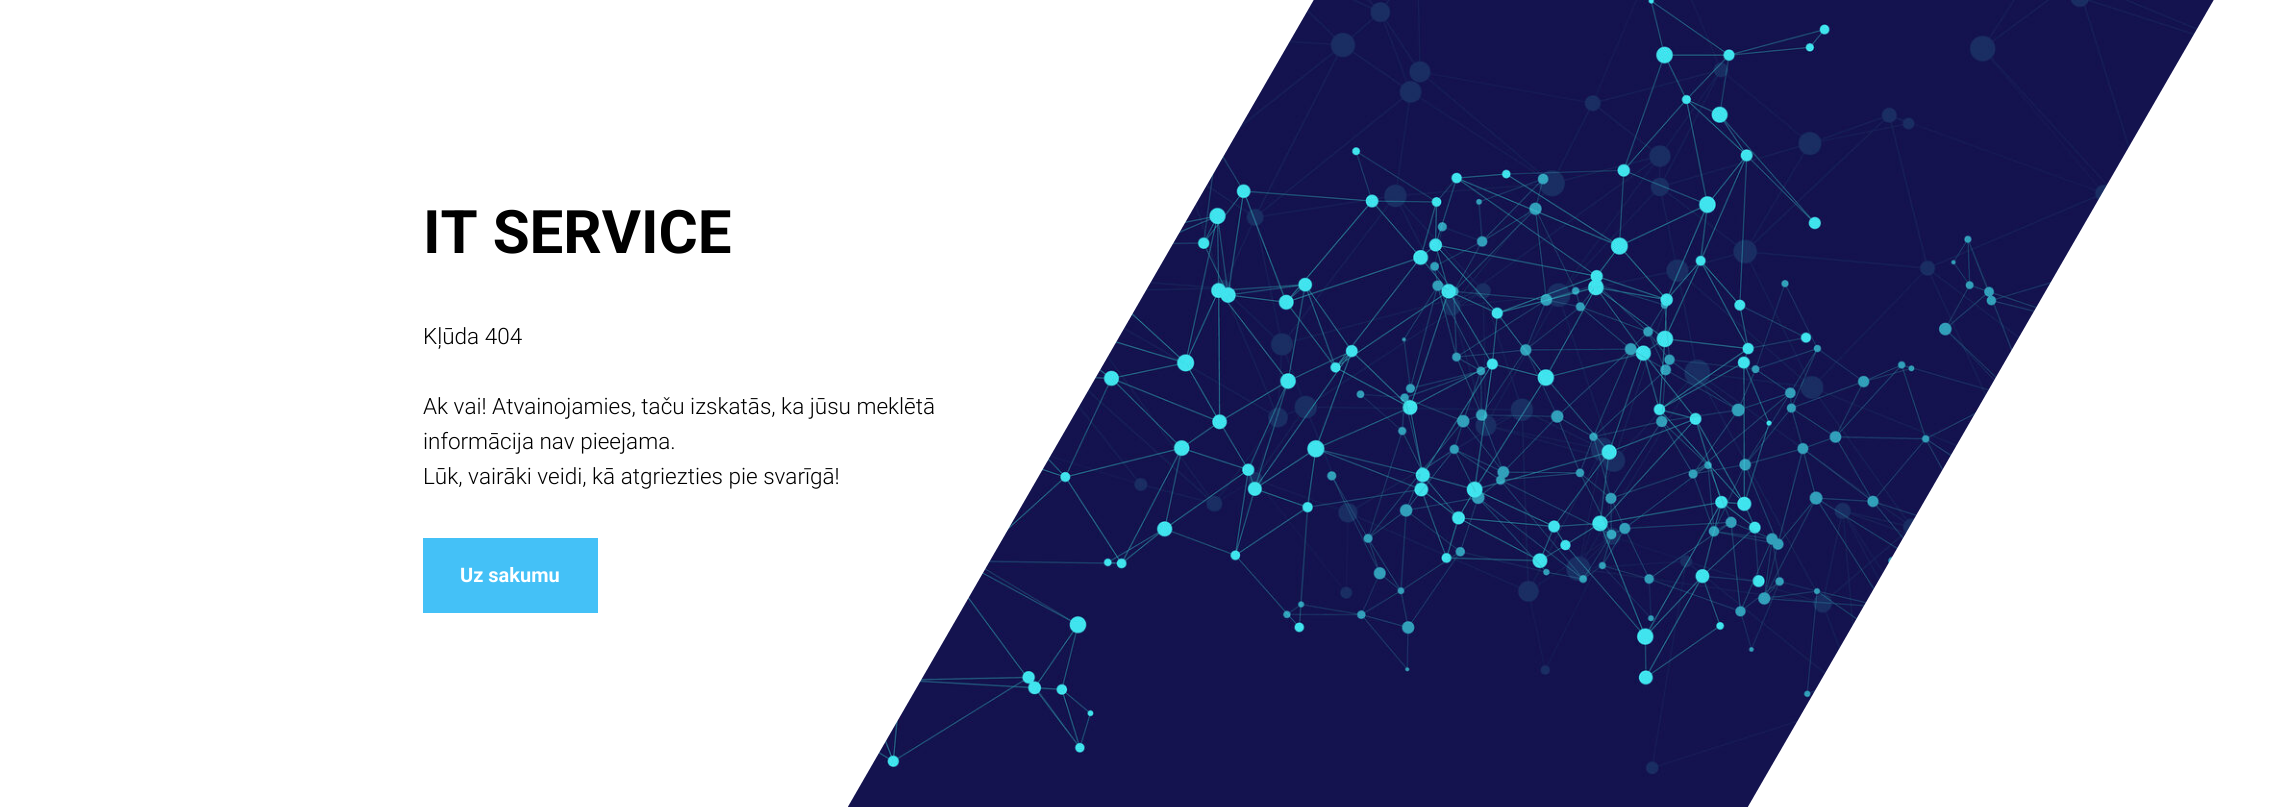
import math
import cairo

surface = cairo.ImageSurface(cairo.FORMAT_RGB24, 2295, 807)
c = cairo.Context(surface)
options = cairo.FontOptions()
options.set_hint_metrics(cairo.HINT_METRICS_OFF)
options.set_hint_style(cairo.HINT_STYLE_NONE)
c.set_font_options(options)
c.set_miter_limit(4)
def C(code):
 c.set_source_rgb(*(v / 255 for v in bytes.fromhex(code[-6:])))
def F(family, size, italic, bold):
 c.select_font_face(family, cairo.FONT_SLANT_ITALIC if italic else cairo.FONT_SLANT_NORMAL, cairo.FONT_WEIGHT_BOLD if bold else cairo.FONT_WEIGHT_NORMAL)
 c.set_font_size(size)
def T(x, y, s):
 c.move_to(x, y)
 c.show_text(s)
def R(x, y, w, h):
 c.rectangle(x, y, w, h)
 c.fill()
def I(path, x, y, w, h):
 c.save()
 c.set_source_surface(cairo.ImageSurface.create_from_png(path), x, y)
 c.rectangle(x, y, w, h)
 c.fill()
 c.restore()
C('ffffff')
c.paint()
F('Roboto',60,0,1)
C('000000')
T(423,253,'IT SERVICE')
F('Roboto Light',22.5,0,0)
T(423,344,'Kļūda 404')
T(423,414,'Ak vai! Atvainojamies, taču izskatās, ka jūsu meklētā')
T(423,449,'informācija nav pieejama.')
T(423,484,'Lūk, vairāki veidi, kā atgriezties pie svarīgā!')
C('44c1f7')
R(423,538,175,75)
F('Roboto',20,0,1)
C('ffffff')
T(460,582,'Uz sakumu')
I('1.png',848,0,1366,807)
surface.write_to_png('o.png')
